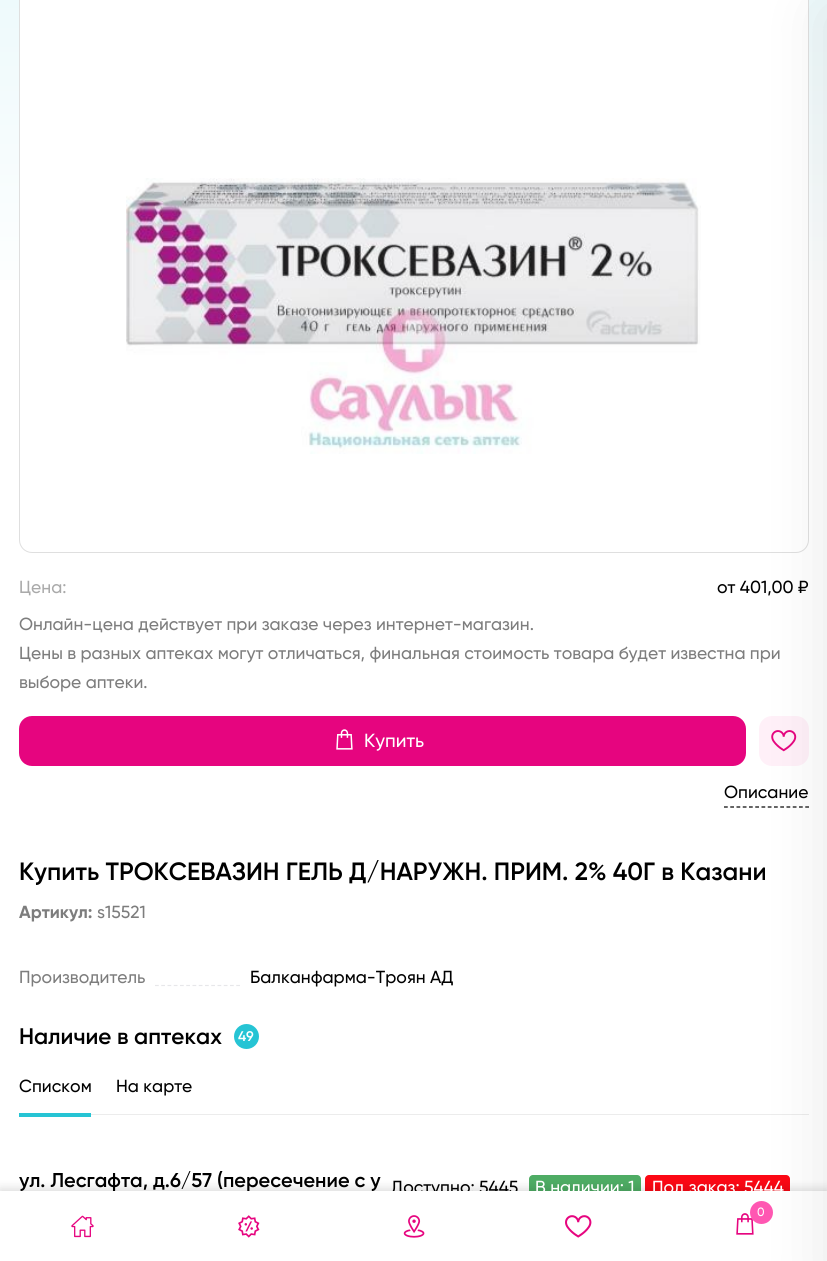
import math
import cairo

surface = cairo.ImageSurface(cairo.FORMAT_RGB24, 827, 1261)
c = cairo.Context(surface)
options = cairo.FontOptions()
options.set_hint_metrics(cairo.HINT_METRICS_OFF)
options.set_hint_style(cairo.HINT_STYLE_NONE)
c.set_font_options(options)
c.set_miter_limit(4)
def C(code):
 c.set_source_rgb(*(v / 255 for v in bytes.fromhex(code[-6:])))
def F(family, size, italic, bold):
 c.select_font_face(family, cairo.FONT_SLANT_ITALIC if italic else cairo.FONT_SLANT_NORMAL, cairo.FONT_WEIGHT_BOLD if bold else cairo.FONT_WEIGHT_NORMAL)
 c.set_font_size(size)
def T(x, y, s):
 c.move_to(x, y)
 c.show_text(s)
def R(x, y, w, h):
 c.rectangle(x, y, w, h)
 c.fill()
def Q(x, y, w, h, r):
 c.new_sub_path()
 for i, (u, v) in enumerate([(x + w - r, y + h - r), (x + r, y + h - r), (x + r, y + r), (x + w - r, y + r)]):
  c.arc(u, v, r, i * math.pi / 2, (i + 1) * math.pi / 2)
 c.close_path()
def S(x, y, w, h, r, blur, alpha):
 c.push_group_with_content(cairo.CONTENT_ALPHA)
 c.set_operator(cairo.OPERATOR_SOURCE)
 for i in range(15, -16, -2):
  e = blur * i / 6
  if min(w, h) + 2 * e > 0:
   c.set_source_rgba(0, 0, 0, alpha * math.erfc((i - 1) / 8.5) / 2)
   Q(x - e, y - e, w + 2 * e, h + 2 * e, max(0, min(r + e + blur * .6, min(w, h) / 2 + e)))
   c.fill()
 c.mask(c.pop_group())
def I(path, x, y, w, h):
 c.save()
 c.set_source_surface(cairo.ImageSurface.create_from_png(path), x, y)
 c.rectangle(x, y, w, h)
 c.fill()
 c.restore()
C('ffffff')
c.paint()
gradient = cairo.LinearGradient(414,-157,414,329)
gradient.add_color_stop_rgba(0,0.902,0.969,0.98,1)
gradient.add_color_stop_rgba(1,1,1,1,1)
c.set_source(gradient)
R(0,0,827,280)
C('ffffff')
Q(19.5,-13.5,789,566,12.5)
c.fill_preserve()
C('dfdfdf')
c.set_line_width(1)
c.stroke()
C('e6057f')
Q(19,716,727,50,13)
c.fill()
C('fff0f8')
Q(759,716,50,50,13)
c.fill()
I('3.png',771,730,26,22)
c.new_path()
c.move_to(724,807)
c.line_to(809,807)
C('000000')
c.set_line_width(1.2)
c.set_dash([3.75,2.5])
c.stroke()
C('ececec')
R(91,1114,718,1)
C('fc0814')
Q(645,1175,145,25,4)
c.fill()
F('Gilroy Medium',17.5,0,0)
C('000000')
T(391,1193,'Доступно: 5445')
C('4eac64')
Q(529,1175,112,25,4)
c.fill()
C('000000')
S(0,1189,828,70,0,5,.15)
C('ffffff')
R(0,1191,827,70)
I('4.png',736,1213,18,22)
C('ff57b2')
c.arc(761.5,1212.5,11.5,0,2 * math.pi)
c.fill()
C('000000')
S(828,13,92,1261,0,31,.1)
I('1.png',126,178,575,276)
C('aaaaaa')
T(19,593,'Цена:')
C('000000')
T(717,593,'от 401,00 ₽')
C('7d7d7d')
T(19,630,'Онлайн-цена действует при заказе через интернет-магазин.')
T(19,659,'Цены в разных аптеках могут отличаться, финальная стоимость товара будет известна при')
T(19,688,'выборе аптеки.')
I('2.png',336,729,17,21)
F('Gilroy Medium',19,0,0)
C('ffffff')
T(364,747,'Купить')
F('Gilroy Medium',17.5,0,0)
C('000000')
T(724,798,'Описание')
F('Gilroy SemiBold',25,0,0)
T(19,880,'Купить ТРОКСЕВАЗИН ГЕЛЬ Д/НАРУЖН. ПРИМ. 2% 40Г в Казани')
F('Gilroy',17.5,0,1)
C('7d7d7d')
T(19,918,'Артикул:')
F('Gilroy Medium',17.5,0,0)
T(97,918,'s15521')
T(19,983,'Производитель')
c.new_path()
c.move_to(155,985.5)
c.line_to(240,985.5)
C('e7e7ea')
c.stroke()
C('000000')
T(250,983,'Балканфарма-Троян АД')
F('Gilroy SemiBold',22.5,0,0)
T(19,1044,'Наличие в аптеках')
C('26c4d4')
c.new_path()
c.arc(246.5,1036.5,12.5,0,2 * math.pi)
c.fill()
F('Gilroy SemiBold',14,0,0)
C('ffffff')
T(238,1041,'49')
F('Gilroy Medium',17.5,0,0)
C('000000')
T(19,1092,'Списком')
C('26c4d4')
R(19,1113,72,4)
C('000000')
T(116,1092,'На карте')
F('Gilroy SemiBold',20,0,0)
T(19,1187,'ул. Лесгафта, д.6/57 (пересечение с у')
F('Gilroy Medium',17.5,0,0)
C('ffffff')
T(535,1193,'В наличии: 1')
T(652,1193,'Под заказ: 5444')
F('Gilroy Medium',12,0,0)
T(757,1216,'0')
I('5.png',71,1215,23,23)
I('6.png',238,1215,22,23)
I('7.png',403,1215,22,23)
I('8.png',565,1215,27,23)
surface.write_to_png('o.png')
